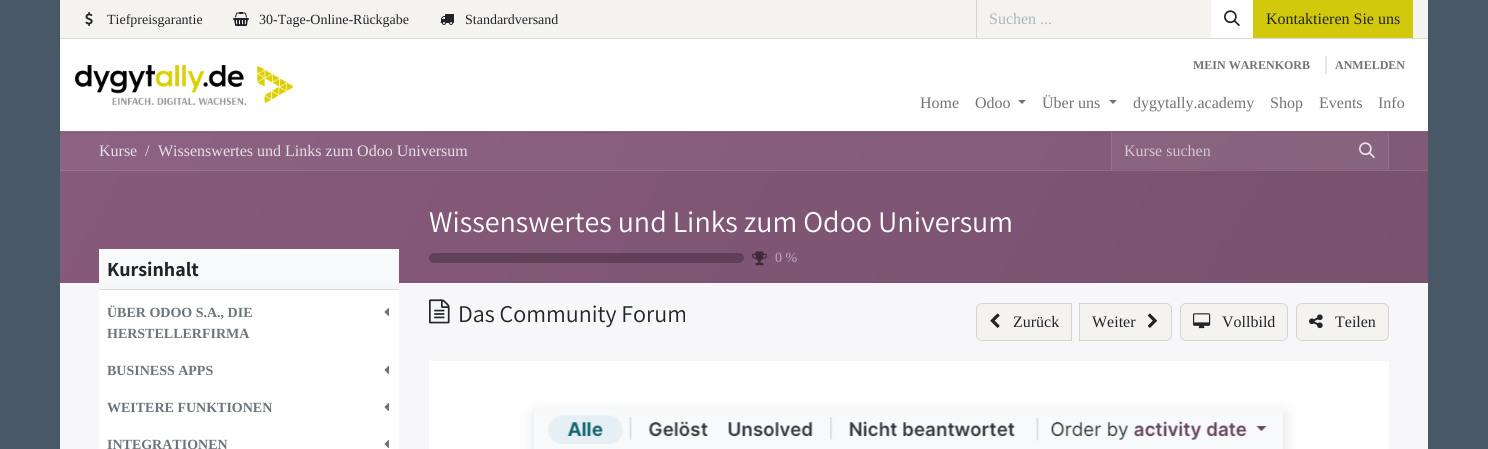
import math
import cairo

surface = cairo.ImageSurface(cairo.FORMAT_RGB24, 1488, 449)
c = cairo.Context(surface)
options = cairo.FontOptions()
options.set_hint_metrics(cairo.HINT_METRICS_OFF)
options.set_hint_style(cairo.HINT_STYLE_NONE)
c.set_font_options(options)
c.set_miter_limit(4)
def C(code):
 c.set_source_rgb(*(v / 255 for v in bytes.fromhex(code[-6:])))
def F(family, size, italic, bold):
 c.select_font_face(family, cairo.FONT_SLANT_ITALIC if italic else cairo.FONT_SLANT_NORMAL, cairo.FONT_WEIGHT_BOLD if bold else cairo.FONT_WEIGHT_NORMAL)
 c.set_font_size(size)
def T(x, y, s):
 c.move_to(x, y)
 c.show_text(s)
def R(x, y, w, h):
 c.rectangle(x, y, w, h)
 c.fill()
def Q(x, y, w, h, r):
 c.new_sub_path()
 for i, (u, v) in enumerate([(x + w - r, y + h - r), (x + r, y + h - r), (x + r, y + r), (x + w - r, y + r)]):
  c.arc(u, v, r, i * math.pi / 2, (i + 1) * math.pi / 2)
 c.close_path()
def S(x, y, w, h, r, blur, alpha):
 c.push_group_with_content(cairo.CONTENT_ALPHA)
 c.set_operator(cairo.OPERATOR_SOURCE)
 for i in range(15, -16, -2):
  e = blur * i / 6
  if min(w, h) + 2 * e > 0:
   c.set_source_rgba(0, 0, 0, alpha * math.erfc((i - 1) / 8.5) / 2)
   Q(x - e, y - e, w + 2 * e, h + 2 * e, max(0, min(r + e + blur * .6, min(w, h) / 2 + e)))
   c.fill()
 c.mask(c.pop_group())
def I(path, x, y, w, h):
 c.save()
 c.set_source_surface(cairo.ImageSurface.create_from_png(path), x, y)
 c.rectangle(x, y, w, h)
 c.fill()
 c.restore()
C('495867')
c.paint()
gradient = cairo.LinearGradient(198,-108,1290,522)
gradient.add_color_stop_rgba(0,0.553,0.384,0.51,1)
gradient.add_color_stop_rgba(1,0.498,0.353,0.463,1)
c.set_source(gradient)
R(60,132,1368,38)
gradient = cairo.LinearGradient(198,-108,1290,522)
gradient.add_color_stop_rgba(0,0.576,0.416,0.533,1)
gradient.add_color_stop_rgba(1,0.522,0.384,0.49,1)
c.set_source(gradient)
R(1112,132,276,38)
gradient = cairo.LinearGradient(198,-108,1290,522)
gradient.add_color_stop_rgba(0,0.596,0.447,0.561,1)
gradient.add_color_stop_rgba(1,0.549,0.42,0.518,1)
c.set_source(gradient)
R(60,131,1368,1)
C('92738b')
R(1388,132,1,38)
C('95738d')
R(1111,132,1,38)
C('000000')
S(60,1,1368,131,0,1.5,.1)
C('ffffff')
R(60,39,1368,92)
C('f5f3f0')
R(60,0,1368,38)
C('dddbd8')
R(60,38,1368,1)
I('1.png',85,12,8,14)
F('Liberation Serif',14,0,0)
C('212529')
T(107,24,'Tiefpreisgarantie')
I('2.png',233,12,16,14)
T(259,24,'30-Tage-Online-Rückgabe')
I('3.png',440,14,14,11)
T(465,24,'Standardversand')
C('d5d4d2')
R(976,0,1,38)
F('Liberation Serif',16,0,0)
C('adb5bd')
T(989,24,'Suchen ...')
C('ffffff')
R(1211,0,42,38)
I('4.png',1224,10,16,17)
C('d2c90c')
R(1253,0,160,38)
C('212529')
T(1266,24,'Kontaktieren Sie uns')
I('5.png',75,65,218,40)
F('Liberation Serif',12,0,1)
C('737373')
T(1193,69,'MEIN WARENKORB')
C('e6e6e6')
R(1325,56,2,18)
C('737373')
T(1335,69,'ANMELDEN')
F('Liberation Serif',16,0,0)
T(920,108,'Home')
T(975,108,'Odoo')
c.new_path()
c.move_to(1018,100)
c.line_to(1026,100)
c.line_to(1022,104)
c.close_path()
c.fill()
T(1042,108,'Über uns')
c.new_path()
c.move_to(1109,100)
c.line_to(1117,100)
c.line_to(1113,104)
c.close_path()
c.fill()
T(1133,108,'dygytally.academy')
T(1270,108,'Shop')
T(1319,108,'Events')
T(1378,108,'Info')
C('f7f7fa')
R(60,283,1368,166)
gradient = cairo.LinearGradient(198,-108,1290,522)
gradient.add_color_stop_rgba(0,0.529,0.353,0.482,1)
gradient.add_color_stop_rgba(1,0.471,0.318,0.435,1)
c.set_source(gradient)
R(60,171,1368,112)
gradient = cairo.LinearGradient(198,-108,1290,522)
gradient.add_color_stop_rgba(0,0.596,0.447,0.561,1)
gradient.add_color_stop_rgba(1,0.549,0.42,0.518,1)
c.set_source(gradient)
R(60,170,1368,1)
C('e8e0e6')
T(99,156,'Kurse')
T(145,156,'/')
T(158,156,'Wissenswertes und Links zum Odoo Universum')
C('d4c7d1')
T(1124,156,'Kurse suchen')
I('6.png',1359,142,16,17)
F('Assistant',30,0,0)
C('ffffff')
T(429,232,'Wissenswertes und Links zum Odoo Universum')
c.set_source_rgba(0,0,0,0.25)
Q(429,253,315,10,5)
c.fill()
I('7.png',752,251,15,15)
F('Liberation Serif',14,0,0)
C('bfaaba')
T(775,262,'0 %')
C('ffffff')
R(99,290,300,159)
C('f8f9fa')
R(99,249,300,34)
C('d8d9db')
R(99,289,300,1)
F('Assistant',20,0,1)
C('212529')
T(107,276,'Kursinhalt')
F('Liberation Serif',14,0,1)
C('6c757d')
T(107,317,'ÜBER ODOO S.A., DIE')
T(107,338,'HERSTELLERFIRMA')
I('8.png',384,308,5,8)
T(107,375,'BUSINESS APPS')
I('8.png',384,366,5,8)
T(107,412,'WEITERE FUNKTIONEN')
I('8.png',384,403,5,8)
T(107,449,'INTEGRATIONEN')
I('8.png',384,440,5,8)
I('9.png',429,299,21,25)
F('Assistant',24,0,0)
C('212529')
T(458,322,'Das Community Forum')
C('f5f3f0')
c.new_path()
c.move_to(982,303.5)
c.line_to(1071.5,303.5)
c.line_to(1071.5,340.5)
c.line_to(982,340.5)
c.curve_to(979,340.5,976.5,338,976.5,335)
c.line_to(976.5,309)
c.curve_to(976.5,306,979,303.5,982,303.5)
c.close_path()
c.fill_preserve()
C('d5d4d2')
c.set_line_width(1)
c.stroke()
I('10.png',990,313,10,15)
F('Liberation Serif',16,0,0)
C('212529')
T(1013,327,'Zurück')
C('f5f3f0')
c.new_path()
c.move_to(1079.5,303.5)
c.line_to(1166,303.5)
c.curve_to(1169,303.5,1171.5,306,1171.5,309)
c.line_to(1171.5,335)
c.curve_to(1171.5,338,1169,340.5,1166,340.5)
c.line_to(1079.5,340.5)
c.close_path()
c.fill_preserve()
C('d5d4d2')
c.stroke()
C('212529')
T(1092,327,'Weiter')
I('11.png',1147,313,10,15)
C('f5f3f0')
Q(1180.5,303.5,107,37,5.5)
c.fill_preserve()
C('d5d4d2')
c.stroke()
I('12.png',1193,313,18,16)
C('212529')
T(1222,327,'Vollbild')
C('f5f3f0')
Q(1296.5,303.5,92,37,5.5)
c.fill_preserve()
C('d5d4d2')
c.stroke()
I('13.png',1309,314,14,15)
C('212529')
T(1335,327,'Teilen')
C('ffffff')
R(429,361,960,88)
C('000000')
S(534,413,750,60,0,8,.12)
I('14.png',534,409,749,40)
surface.write_to_png('o.png')
